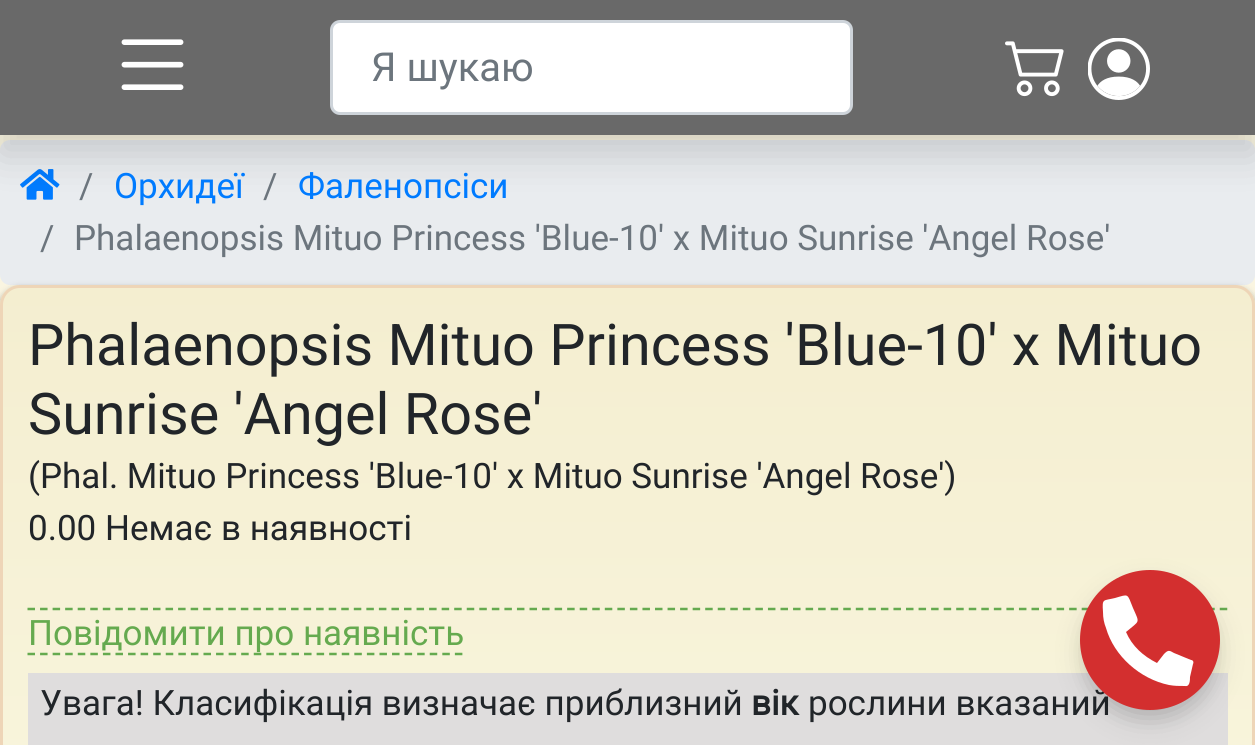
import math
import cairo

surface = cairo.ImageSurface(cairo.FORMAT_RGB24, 1255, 745)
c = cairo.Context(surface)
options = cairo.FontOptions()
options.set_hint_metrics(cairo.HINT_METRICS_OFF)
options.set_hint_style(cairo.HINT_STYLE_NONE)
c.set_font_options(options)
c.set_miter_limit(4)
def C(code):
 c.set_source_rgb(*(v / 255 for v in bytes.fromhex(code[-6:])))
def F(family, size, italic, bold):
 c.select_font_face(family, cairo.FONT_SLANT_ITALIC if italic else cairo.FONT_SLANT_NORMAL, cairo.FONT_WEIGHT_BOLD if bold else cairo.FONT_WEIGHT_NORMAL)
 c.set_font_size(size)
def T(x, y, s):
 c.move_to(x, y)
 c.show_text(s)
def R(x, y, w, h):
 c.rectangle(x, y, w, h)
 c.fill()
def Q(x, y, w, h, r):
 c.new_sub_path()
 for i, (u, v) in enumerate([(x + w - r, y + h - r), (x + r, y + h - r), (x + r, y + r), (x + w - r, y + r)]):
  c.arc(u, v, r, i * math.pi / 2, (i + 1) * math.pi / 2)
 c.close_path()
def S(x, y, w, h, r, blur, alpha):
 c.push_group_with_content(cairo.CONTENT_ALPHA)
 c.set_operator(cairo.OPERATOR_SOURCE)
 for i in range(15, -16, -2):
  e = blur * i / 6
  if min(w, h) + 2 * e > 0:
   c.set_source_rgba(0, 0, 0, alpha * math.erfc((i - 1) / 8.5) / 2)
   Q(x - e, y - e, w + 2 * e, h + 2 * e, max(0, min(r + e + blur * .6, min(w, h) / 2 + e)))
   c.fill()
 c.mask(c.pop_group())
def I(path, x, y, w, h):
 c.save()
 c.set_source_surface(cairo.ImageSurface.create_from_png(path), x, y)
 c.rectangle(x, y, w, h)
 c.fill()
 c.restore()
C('faf5e1')
c.paint()
C('e9ecef')
Q(0,140,1255,145,10)
c.fill()
I('4.png',20,169,40,31)
C('000000')
S(0,20,1255,135,0,20,.15)
C('696969')
R(0,0,1255,135)
I('1.png',121,39,63,51)
C('ffffff')
Q(331.5,21.5,520,92,8.5)
c.fill_preserve()
C('ced4da')
c.set_line_width(3)
c.stroke()
F('Roboto',40,0,0)
C('6c757d')
T(371,81,'Я шукаю')
I('2.png',1005,41,59,56)
I('3.png',1088,38,62,62)
F('Roboto',35,0,0)
T(79,198,'/')
C('007bff')
T(114,198,'Орхидеї')
C('6c757d')
T(263,198,'/')
C('007bff')
T(298,198,'Фаленопсіси')
C('6c757d')
T(40,250,'/')
T(74,250,'Phalaenopsis Mituo Princess \'Blue-10\' x Mituo Sunrise \'Angel Rose\'')
C('666666')
S(0,290,1255,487,20,4,1)
c.save()
Q(0,285,1255,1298,20)
c.clip()
gradient = cairo.LinearGradient(627,287,628,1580)
gradient.add_color_stop_rgba(0,0.957,0.933,0.816,1)
gradient.add_color_stop_rgba(1,1,1,0.933,1)
c.set_source(gradient)
R(0,288,1255,457)
c.restore()
Q(1.5,286.5,1252,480,18.5)
C('eed5b7')
c.stroke()
F('Roboto',57.5,0,0)
C('212529')
T(28,365,'Phalaenopsis Mituo Princess \'Blue-10\' x Mituo')
T(28,434,'Sunrise \'Angel Rose\'')
F('Roboto',35,0,0)
T(28,488,'(Phal. Mituo Princess \'Blue-10\' x Mituo Sunrise \'Angel Rose\')')
T(28,540,'0.00 Немає в наявності')
c.new_path()
c.move_to(27.5,654)
c.line_to(462.5,654)
C('65aa4f')
c.set_line_width(2.5)
c.set_dash([7.5,5.07])
c.stroke()
T(28,645,'Повідомити про наявність')
c.new_path()
c.move_to(27.5,609)
c.line_to(1227.5,609)
c.set_dash([7.5,5.05])
c.stroke()
C('dfdddd')
R(28,673,1200,72)
C('212529')
T(40,715,'Увага! Класифікація визначає приблизний')
F('Roboto',35,0,1)
T(751,715,'вік')
F('Roboto',35,0,0)
T(808,715,'рослини вказаний')
C('000000')
S(1098,598,105,105,52.5,15,.15)
S(1085,588,130,130,65,14,.18)
C('d32f2f')
c.arc(1150,640,70,0,2 * math.pi)
c.fill()
C('ffffff')
c.new_path()
c.move_to(1191,660)
c.curve_to(1193,660,1194,662,1193,664)
c.line_to(1190,677)
c.curve_to(1190,680,1190,687,1185,686)
c.curve_to(1178,686,1175,686,1169,685)
c.curve_to(1140,679,1114,656,1106,628)
c.curve_to(1104,623,1103,618,1103,612)
c.curve_to(1102,598,1103,601,1115,598)
c.curve_to(1129,594,1127,593,1133,608)
c.curve_to(1140,624,1140,620,1126,632)
c.curve_to(1132,646,1143,656,1157,663)
c.line_to(1164,654)
c.curve_to(1168,650,1169,650,1174,653)
c.close_path()
c.fill()
surface.write_to_png('o.png')
